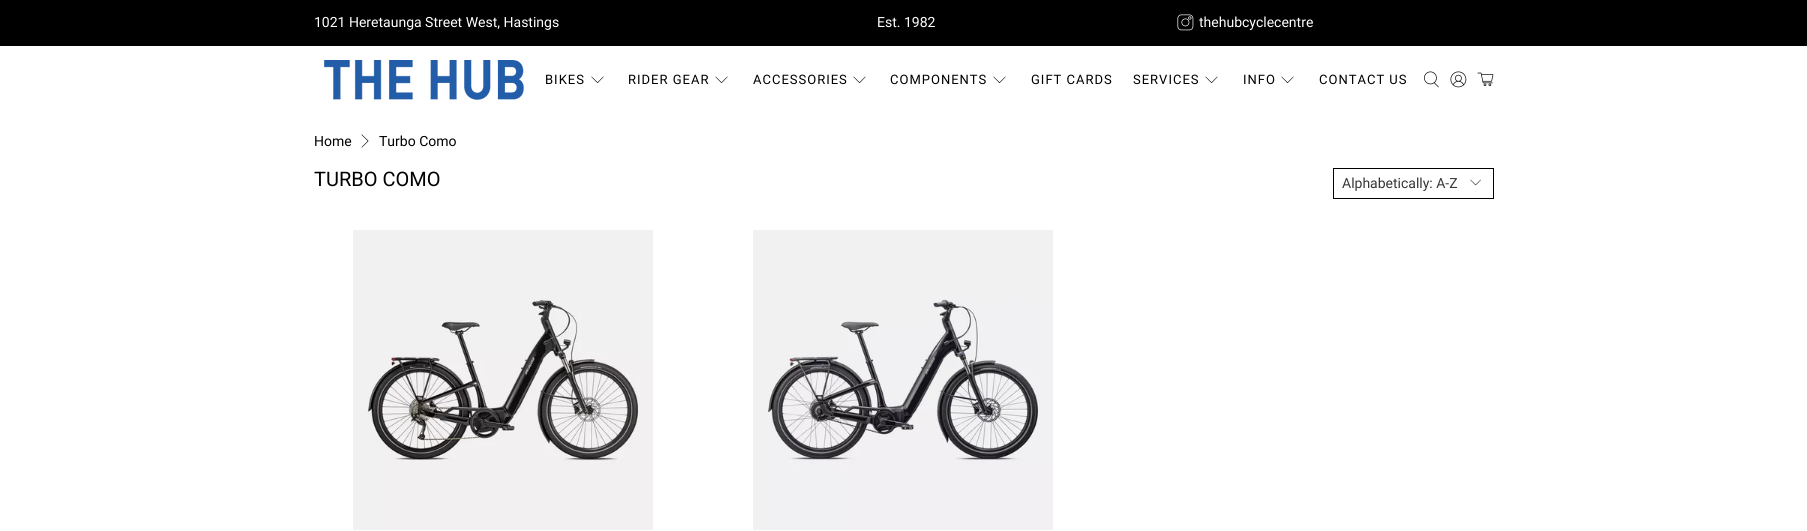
import math
import cairo

surface = cairo.ImageSurface(cairo.FORMAT_RGB24, 1807, 531)
c = cairo.Context(surface)
options = cairo.FontOptions()
options.set_hint_metrics(cairo.HINT_METRICS_OFF)
options.set_hint_style(cairo.HINT_STYLE_NONE)
c.set_font_options(options)
c.set_miter_limit(4)
def C(code):
 c.set_source_rgb(*(v / 255 for v in bytes.fromhex(code[-6:])))
def F(family, size, italic, bold):
 c.select_font_face(family, cairo.FONT_SLANT_ITALIC if italic else cairo.FONT_SLANT_NORMAL, cairo.FONT_WEIGHT_BOLD if bold else cairo.FONT_WEIGHT_NORMAL)
 c.set_font_size(size)
def T(x, y, s):
 c.move_to(x, y)
 c.show_text(s)
def L(x, y, s, letter, word):
 c.move_to(x, y)
 for ch in s:
  c.show_text(ch)
  c.rel_move_to(letter + word * (ch == ' '), 0)
def R(x, y, w, h):
 c.rectangle(x, y, w, h)
 c.fill()
def I(path, x, y, w, h):
 c.save()
 c.set_source_surface(cairo.ImageSurface.create_from_png(path), x, y)
 c.rectangle(x, y, w, h)
 c.fill()
 c.restore()
C('ffffff')
c.paint()
C('000000')
R(0,0,1807,46)
F('Roboto',14,0,0)
C('ffffff')
T(314,27,'1021 Heretaunga Street West, Hastings')
T(877,27,'Est. 1982')
I('1.png',1177,14,17,17)
T(1199,27,'thehubcyclecentre')
I('2.png',324,60,200,40)
F('Roboto',13,0,0)
C('000000')
L(545,84,'BIKES',1,0)
I('3.png',591,76,13,7)
L(628,84,'RIDER GEAR',1,0)
I('3.png',715,76,13,7)
L(753,84,'ACCESSORIES',1,0)
I('3.png',853,76,13,7)
L(890,84,'COMPONENTS',1,0)
I('3.png',993,76,13,7)
L(1031,84,'GIFT CARDS',1,0)
L(1133,84,'SERVICES',1,0)
I('3.png',1205,76,13,7)
L(1243,84,'INFO',1,0)
I('3.png',1281,76,13,7)
L(1319,84,'CONTACT US',1,0)
I('4.png',1424,71,15,17)
I('5.png',1450,71,17,17)
I('6.png',1477,72,17,15)
F('Roboto',14,0,0)
T(314,146,'Home')
I('7.png',361,134,8,14)
T(379,146,'Turbo Como')
F('Roboto',20,0,0)
T(314,186,'TURBO COMO')
c.rectangle(1333.5,168.5,160,30)
c.set_line_width(1)
c.stroke()
F('Roboto',14,0,0)
C('363636')
T(1342,188,'Alphabetically: A-Z')
I('8.png',1470,179,11,7)
I('9.png',353,230,300,300)
I('10.png',753,230,300,300)
surface.write_to_png('o.png')
